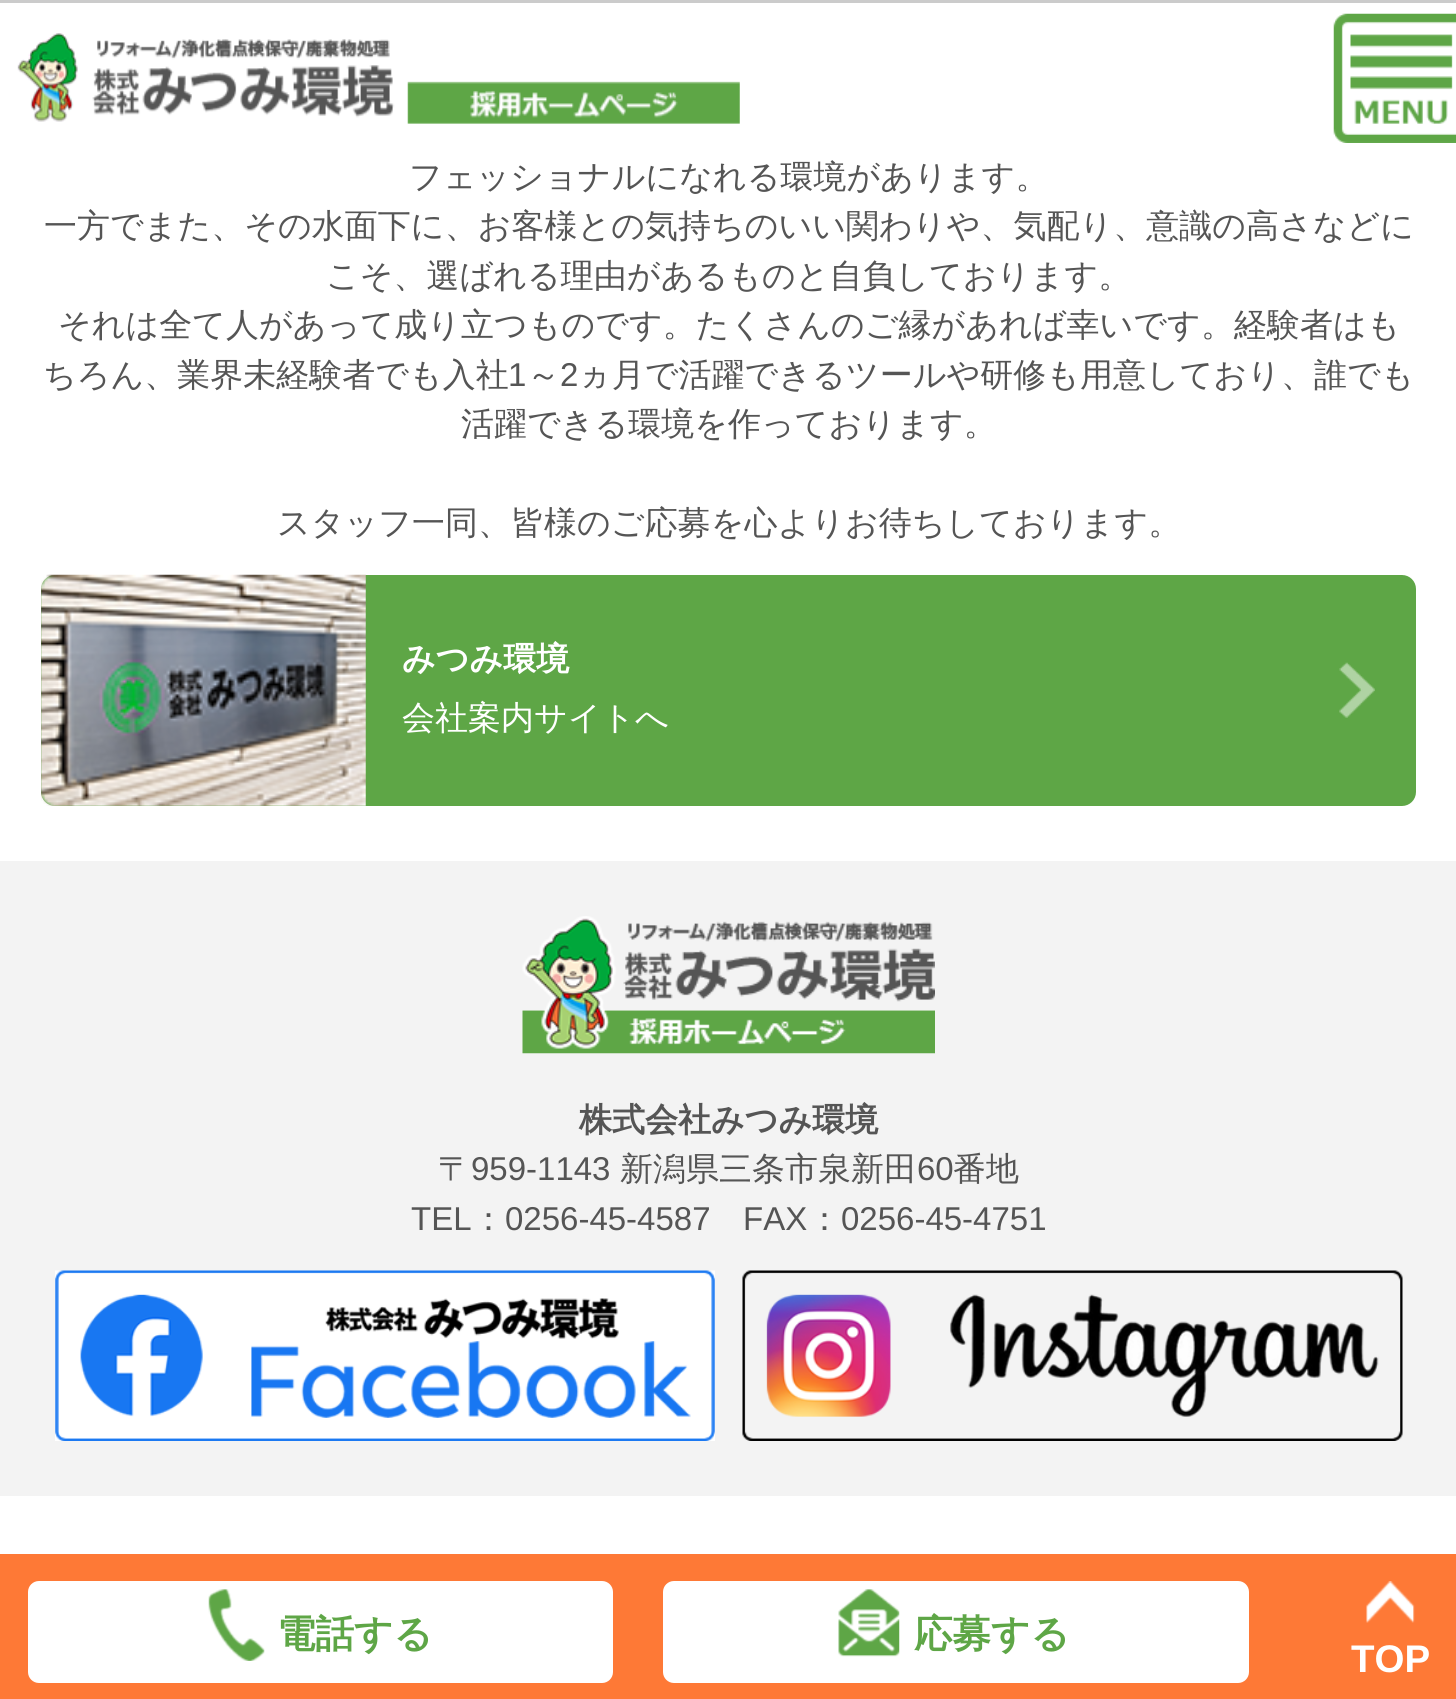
import math
import cairo

surface = cairo.ImageSurface(cairo.FORMAT_RGB24, 1456, 1699)
c = cairo.Context(surface)
options = cairo.FontOptions()
options.set_hint_metrics(cairo.HINT_METRICS_OFF)
options.set_hint_style(cairo.HINT_STYLE_NONE)
c.set_font_options(options)
c.set_miter_limit(4)
def C(code):
 c.set_source_rgb(*(v / 255 for v in bytes.fromhex(code[-6:])))
def F(family, size, italic, bold):
 c.select_font_face(family, cairo.FONT_SLANT_ITALIC if italic else cairo.FONT_SLANT_NORMAL, cairo.FONT_WEIGHT_BOLD if bold else cairo.FONT_WEIGHT_NORMAL)
 c.set_font_size(size)
def T(x, y, s):
 c.move_to(x, y)
 c.show_text(s)
def R(x, y, w, h):
 c.rectangle(x, y, w, h)
 c.fill()
def Q(x, y, w, h, r):
 c.new_sub_path()
 for i, (u, v) in enumerate([(x + w - r, y + h - r), (x + r, y + h - r), (x + r, y + r), (x + w - r, y + r)]):
  c.arc(u, v, r, i * math.pi / 2, (i + 1) * math.pi / 2)
 c.close_path()
def I(path, x, y, w, h):
 c.save()
 c.set_source_surface(cairo.ImageSurface.create_from_png(path), x, y)
 c.rectangle(x, y, w, h)
 c.fill()
 c.restore()
C('ffffff')
c.paint()
C('cbcbcb')
R(0,0,1456,3)
I('1.png',17,33,723,91)
I('2.png',1333,13,123,130)
F('WenQuanYi Zen Hei Medium',33,0,0)
C('555555')
T(409,188,'フェッショナルになれる環境があります。')
T(44,237,'一方でまた、その水面下に、お客様との気持ちのいい関わりや、気配り、意識の高さなどに')
T(326,287,'こそ、選ばれる理由があるものと自負しております。')
T(58,336,'それは全て人があって成り立つものです。たくさんのご縁があれば幸いです。経験者はも')
T(43,386,'ちろん、業界未経験者でも入社')
F('Liberation Sans',33,0,0)
T(508,386,'1')
F('WenQuanYi Zen Hei Medium',33,0,0)
T(527,386,'～')
F('Liberation Sans',33,0,0)
T(560,386,'2')
F('WenQuanYi Zen Hei Medium',33,0,0)
T(578,386,'ヵ月で活躍できるツールや研修も用意しており、誰でも')
T(461,435,'活躍できる環境を作っております。')
T(277,534,'スタッフ一同、皆様のご応募を心よりお待ちしております。')
C('5ea646')
Q(41,575,1375,231,14)
c.fill()
I('3.png',1339,662,36,56)
I('4.png',41,574,325,232)
F('WenQuanYi Zen Hei',33,0,1)
C('ffffff')
T(402,670,'みつみ環境')
F('WenQuanYi Zen Hei Medium',33,0,0)
T(402,729,'会社案内サイトへ')
C('f3f3f3')
R(0,861,1456,635)
I('5.png',522,916,413,138)
F('WenQuanYi Zen Hei',33,0,1)
C('555555')
T(579,1131,'株式会社みつみ環境')
F('WenQuanYi Zen Hei Medium',33,0,0)
T(438,1180,'〒')
F('Liberation Sans',33,0,0)
T(471,1180,'959-1143')
F('WenQuanYi Zen Hei Medium',33,0,0)
T(620,1180,'新潟県三条市泉新田')
F('Liberation Sans',33,0,0)
T(917,1180,'60')
F('WenQuanYi Zen Hei Medium',33,0,0)
T(953,1180,'番地')
F('Liberation Sans',33,0,0)
T(411,1230,'TEL')
F('WenQuanYi Zen Hei Medium',33,0,0)
T(472,1230,'：')
F('Liberation Sans',33,0,0)
T(505,1230,'0256-45-4587')
T(743,1230,'FAX')
F('WenQuanYi Zen Hei Medium',33,0,0)
T(808,1230,'：')
F('Liberation Sans',33,0,0)
T(841,1230,'0256-45-4751')
I('6.png',55,1270,660,171)
I('7.png',742,1270,661,171)
C('fe7936')
R(0,1554,1456,145)
C('ffffff')
Q(28,1581,585,102,11)
c.fill()
I('8.png',208,1589,57,72)
F('WenQuanYi Zen Hei',38.5,0,1)
C('5ea646')
T(277,1647,'電話する')
C('ffffff')
Q(663,1581,586,102,11)
c.fill()
I('9.png',838,1589,62,68)
C('5ea646')
T(914,1647,'応募する')
I('10.png',1366,1581,49,42)
F('Liberation Sans',38.5,0,1)
C('ffffff')
T(1351,1672,'TOP')
surface.write_to_png('o.png')
